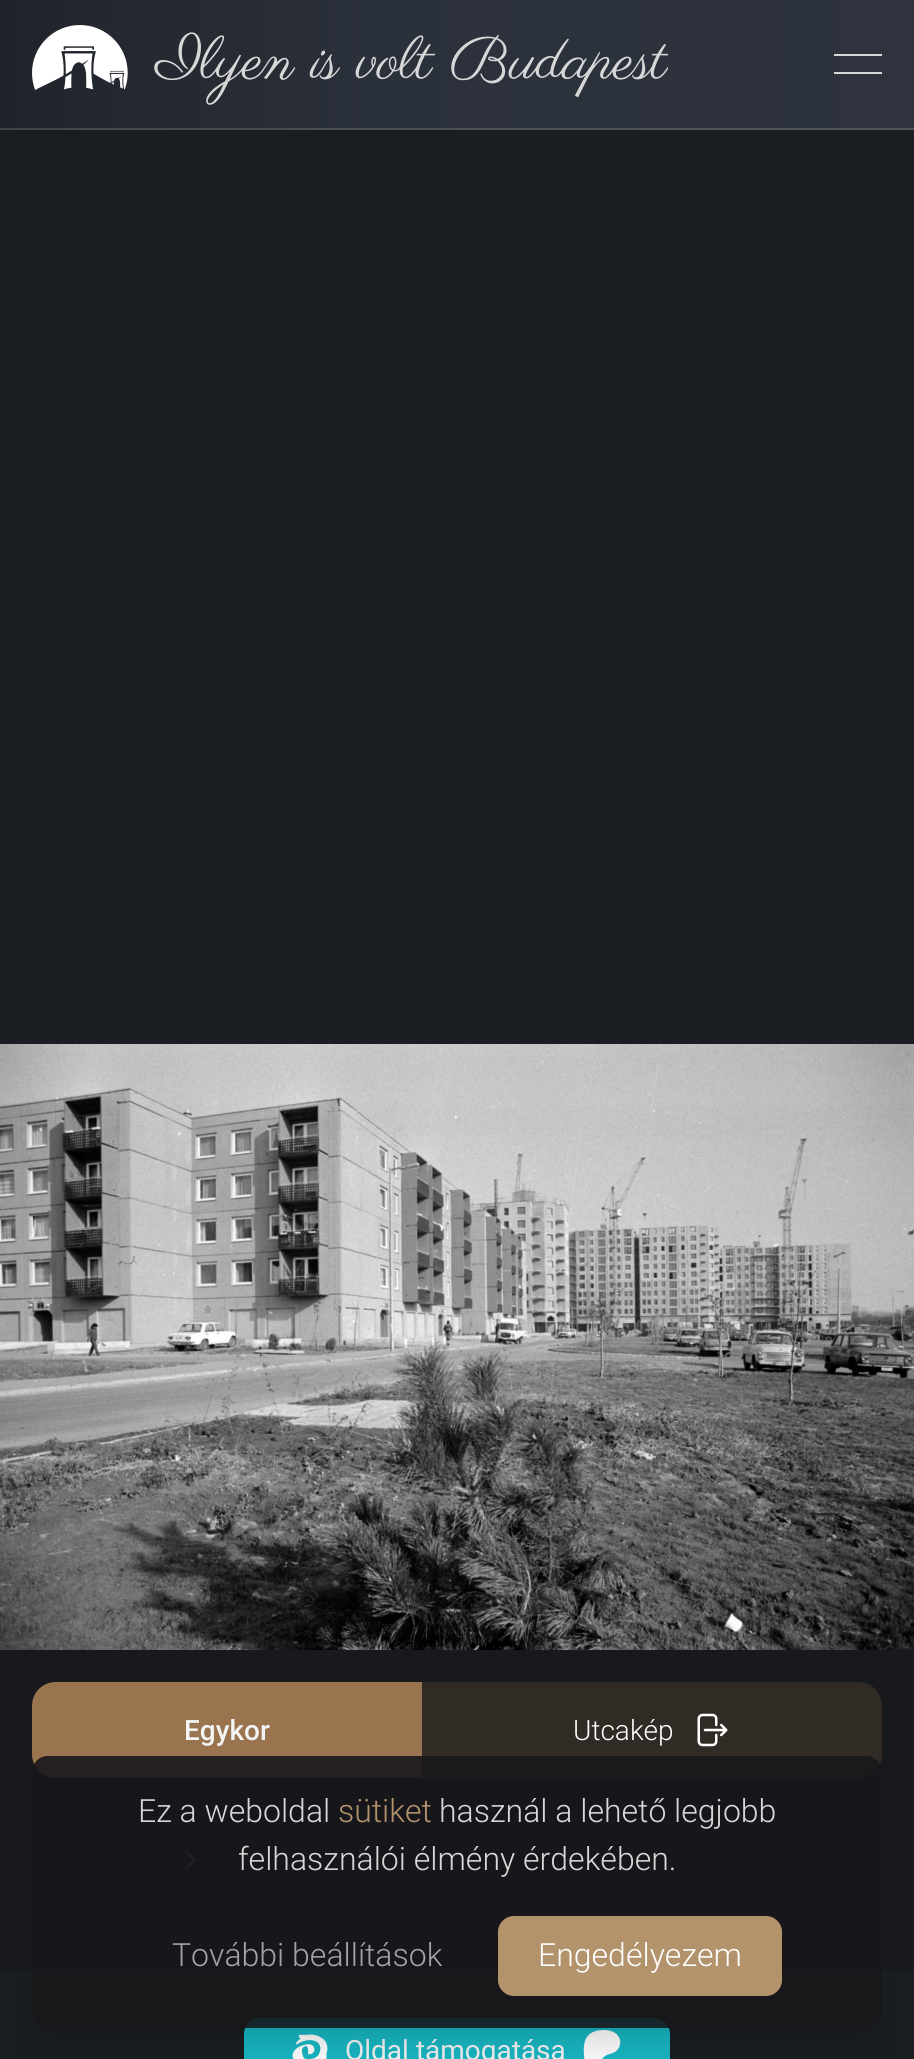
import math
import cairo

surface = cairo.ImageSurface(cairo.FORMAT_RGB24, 914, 2059)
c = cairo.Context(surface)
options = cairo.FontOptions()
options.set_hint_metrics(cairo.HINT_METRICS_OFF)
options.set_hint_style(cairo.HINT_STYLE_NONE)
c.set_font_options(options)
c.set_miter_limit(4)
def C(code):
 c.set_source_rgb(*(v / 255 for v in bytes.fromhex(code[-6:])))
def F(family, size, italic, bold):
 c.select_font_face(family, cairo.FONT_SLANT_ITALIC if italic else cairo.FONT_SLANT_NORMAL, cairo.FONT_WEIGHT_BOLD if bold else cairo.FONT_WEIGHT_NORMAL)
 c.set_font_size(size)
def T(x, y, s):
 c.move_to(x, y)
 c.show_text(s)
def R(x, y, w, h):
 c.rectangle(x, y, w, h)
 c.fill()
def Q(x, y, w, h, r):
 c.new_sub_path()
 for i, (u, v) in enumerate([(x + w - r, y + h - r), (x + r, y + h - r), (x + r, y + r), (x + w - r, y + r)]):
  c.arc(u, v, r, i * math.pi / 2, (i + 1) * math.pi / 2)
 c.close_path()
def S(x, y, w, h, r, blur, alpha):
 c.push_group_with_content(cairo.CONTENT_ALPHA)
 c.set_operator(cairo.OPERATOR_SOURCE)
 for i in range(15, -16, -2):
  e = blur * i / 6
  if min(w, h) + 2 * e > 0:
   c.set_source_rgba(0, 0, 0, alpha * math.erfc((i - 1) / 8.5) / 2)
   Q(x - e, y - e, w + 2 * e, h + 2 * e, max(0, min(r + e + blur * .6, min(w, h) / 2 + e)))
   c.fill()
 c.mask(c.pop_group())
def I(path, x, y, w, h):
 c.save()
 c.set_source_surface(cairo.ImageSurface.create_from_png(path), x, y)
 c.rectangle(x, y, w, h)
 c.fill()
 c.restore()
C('1a1d21')
c.paint()
gradient = cairo.LinearGradient(0,1030,914,1030)
gradient.add_color_stop_rgba(0,0.118,0.133,0.161,1)
gradient.add_color_stop_rgba(.1,0.137,0.153,0.184,1)
gradient.add_color_stop_rgba(.2,0.145,0.165,0.196,1)
gradient.add_color_stop_rgba(.3,0.153,0.173,0.208,1)
gradient.add_color_stop_rgba(.4,0.169,0.192,0.231,1)
gradient.add_color_stop_rgba(1,0.18,0.2,0.243,1)
c.set_source(gradient)
R(0,0,914,128)
gradient = cairo.LinearGradient(0,1030,914,1030)
gradient.add_color_stop_rgba(0,0.251,0.263,0.286,1)
gradient.add_color_stop_rgba(.1,0.267,0.278,0.306,1)
gradient.add_color_stop_rgba(.2,0.275,0.29,0.318,1)
gradient.add_color_stop_rgba(.3,0.278,0.298,0.325,1)
gradient.add_color_stop_rgba(.4,0.294,0.314,0.345,1)
gradient.add_color_stop_rgba(1,0.302,0.322,0.357,1)
c.set_source(gradient)
R(0,128,914,2)
I('1.png',32,25,96,65)
c.save()
c.rectangle(152,20,516,88)
c.clip()
F('Parisienne',60,0,0)
C('d7d7d7')
T(156,78,'Ilyen is volt Budapest')
c.restore()
C('d7d7d7')
R(834,54,48,2)
R(834,72,48,2)
I('2.png',0,1044,914,606)
C('18191c')
R(0,1650,914,320)
C('99744e')
c.new_path()
c.move_to(56,1682)
c.line_to(422,1682)
c.line_to(422,1778)
c.line_to(56,1778)
c.curve_to(42.5,1778,32,1767.5,32,1754)
c.line_to(32,1706)
c.curve_to(32,1692.5,42.5,1682,56,1682)
c.close_path()
c.fill()
F('Roboto Medium',28,0,0)
C('f4f4f5')
T(184,1740,'Egykor')
c.set_source_rgba(0.6,0.455,0.306,0.2)
c.new_path()
c.move_to(422,1682)
c.line_to(858,1682)
c.curve_to(871.5,1682,882,1692.5,882,1706)
c.line_to(882,1754)
c.curve_to(882,1767.5,871.5,1778,858,1778)
c.line_to(422,1778)
c.close_path()
c.fill()
F('Roboto Light',28,0,0)
C('ffffff')
T(573,1740,'Utcakép')
I('3.png',697,1713,31,34)
c.new_path()
c.move_to(185.5,1869)
c.line_to(194.5,1860)
c.line_to(185.5,1851)
C('71717a')
c.set_line_width(2.2)
c.set_line_cap(cairo.LINE_CAP_ROUND)
c.set_line_join(cairo.LINE_JOIN_ROUND)
c.stroke()
c.new_path()
c.move_to(359.5,1869)
c.line_to(368.5,1860)
c.line_to(359.5,1851)
c.stroke()
C('18b8c4')
Q(244,2018,426,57,16)
c.fill()
I('4.png',292,2034,36,25)
F('Roboto',28,0,0)
C('f4f4f5')
T(345,2060,'Oldal támogatása')
I('5.png',583,2030,38,29)
c.save()
c.set_fill_rule(cairo.FILL_RULE_EVEN_ODD)
c.new_path()
c.move_to(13,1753)
c.line_to(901,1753)
c.line_to(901,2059)
c.line_to(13,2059)
c.close_path()
c.move_to(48,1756)
c.line_to(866,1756)
c.curve_to(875,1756,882,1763,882,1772)
c.line_to(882,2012)
c.curve_to(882,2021,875,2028,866,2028)
c.line_to(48,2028)
c.curve_to(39,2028,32,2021,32,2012)
c.line_to(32,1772)
c.curve_to(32,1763,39,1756,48,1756)
c.close_path()
c.clip()
C('000000')
S(44,1784,826,248,4,10,.1)
c.restore()
c.save()
c.set_fill_rule(cairo.FILL_RULE_EVEN_ODD)
c.new_path()
c.move_to(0,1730)
c.line_to(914,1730)
c.line_to(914,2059)
c.line_to(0,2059)
c.close_path()
c.move_to(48,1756)
c.line_to(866,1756)
c.curve_to(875,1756,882,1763,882,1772)
c.line_to(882,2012)
c.curve_to(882,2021,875,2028,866,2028)
c.line_to(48,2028)
c.curve_to(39,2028,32,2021,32,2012)
c.line_to(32,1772)
c.curve_to(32,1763,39,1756,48,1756)
c.close_path()
c.clip()
C('000000')
S(42,1806,830,252,6,25,.1)
c.restore()
c.set_source_rgba(0.094,0.094,0.106,0.9)
Q(32,1756,850,272,16)
c.fill()
F('Roboto Light',32,0,0)
C('d7d7d7')
T(138,1822,'Ez a weboldal')
C('b2936c')
T(338,1822,'sütiket')
C('d7d7d7')
T(439,1822,'használ a lehető legjobb')
T(238,1870,'felhasználói élmény érdekében.')
C('a1a1aa')
T(172,1966,'További beállítások')
C('b2936c')
Q(498,1916,284,80,16)
c.fill()
C('ffffff')
T(538,1966,'Engedélyezem')
surface.write_to_png('o.png')
